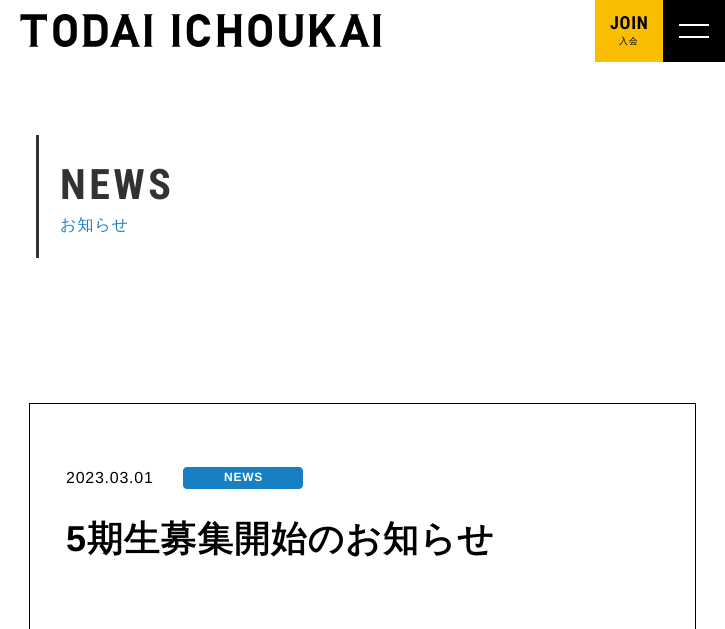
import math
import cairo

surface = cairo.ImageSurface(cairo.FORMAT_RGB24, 725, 629)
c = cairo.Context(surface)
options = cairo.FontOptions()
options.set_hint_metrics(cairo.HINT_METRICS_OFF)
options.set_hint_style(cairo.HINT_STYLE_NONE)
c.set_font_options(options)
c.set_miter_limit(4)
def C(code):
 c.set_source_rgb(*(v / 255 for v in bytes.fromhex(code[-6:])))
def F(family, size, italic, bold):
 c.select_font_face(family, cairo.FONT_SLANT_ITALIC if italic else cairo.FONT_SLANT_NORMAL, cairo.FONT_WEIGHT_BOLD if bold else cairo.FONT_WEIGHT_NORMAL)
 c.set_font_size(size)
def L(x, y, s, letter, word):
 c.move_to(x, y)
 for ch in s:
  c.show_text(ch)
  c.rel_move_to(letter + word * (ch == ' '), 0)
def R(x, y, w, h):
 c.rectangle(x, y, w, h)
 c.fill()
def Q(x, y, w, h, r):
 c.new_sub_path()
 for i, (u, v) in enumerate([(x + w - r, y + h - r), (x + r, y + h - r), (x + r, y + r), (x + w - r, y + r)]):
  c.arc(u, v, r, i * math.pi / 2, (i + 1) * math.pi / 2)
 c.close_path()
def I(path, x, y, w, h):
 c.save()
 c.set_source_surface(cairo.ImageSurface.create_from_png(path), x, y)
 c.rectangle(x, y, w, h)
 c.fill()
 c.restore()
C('ffffff')
c.paint()
I('1.png',20,14,362,33)
C('f9be00')
R(595,0,68,62)
F('Roboto Condensed',18,0,1)
C('000000')
L(610,29,'JOIN',.75,0)
F('WenQuanYi Zen Hei Medium',9,0,0)
L(619,44,'入会',.75,0)
R(663,0,62,62)
C('ffffff')
R(679,24,30,2)
R(679,36,30,2)
C('323232')
R(36,135,3,123)
F('Roboto Condensed',42,0,1)
L(60,199,'NEWS',3.5,0)
F('WenQuanYi Zen Hei Medium',16,0,0)
C('187fc3')
L(60,230,'お知らせ',1,0)
c.rectangle(29.5,403.5,666,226)
C('000000')
c.set_line_width(1)
c.stroke()
F('Liberation Sans',16,0,0)
L(66,483,'2023.03.01',.75,0)
C('187fc3')
Q(183,467,120,22,4)
c.fill()
F('Liberation Sans',12,0,1)
C('ffffff')
L(224,481,'NEWS',.75,0)
F('Liberation Sans',36,0,1)
C('000000')
L(66,551,'5',.75,0)
F('WenQuanYi Zen Hei',36,0,1)
L(87,551,'期生募集開始のお知らせ',.75,0)
surface.write_to_png('o.png')
